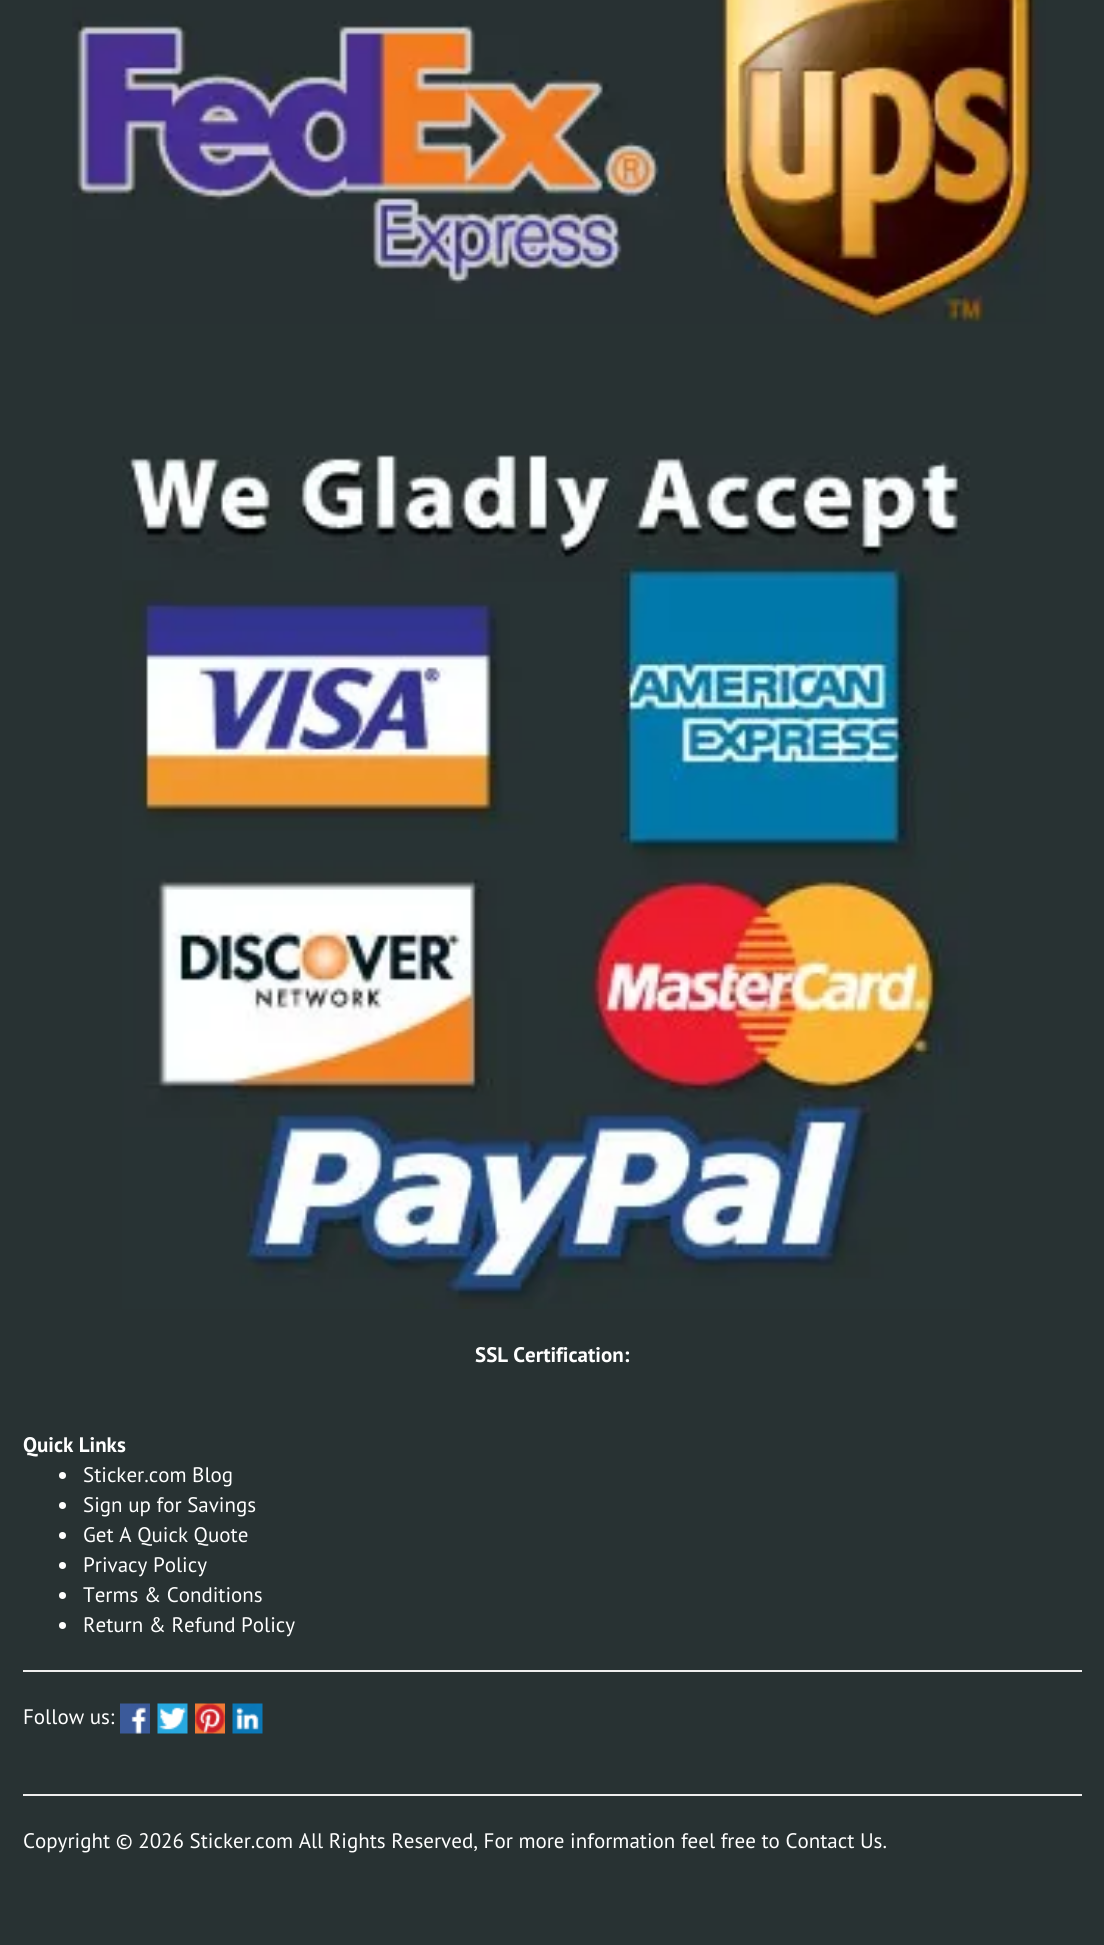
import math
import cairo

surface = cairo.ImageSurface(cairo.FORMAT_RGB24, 1104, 1945)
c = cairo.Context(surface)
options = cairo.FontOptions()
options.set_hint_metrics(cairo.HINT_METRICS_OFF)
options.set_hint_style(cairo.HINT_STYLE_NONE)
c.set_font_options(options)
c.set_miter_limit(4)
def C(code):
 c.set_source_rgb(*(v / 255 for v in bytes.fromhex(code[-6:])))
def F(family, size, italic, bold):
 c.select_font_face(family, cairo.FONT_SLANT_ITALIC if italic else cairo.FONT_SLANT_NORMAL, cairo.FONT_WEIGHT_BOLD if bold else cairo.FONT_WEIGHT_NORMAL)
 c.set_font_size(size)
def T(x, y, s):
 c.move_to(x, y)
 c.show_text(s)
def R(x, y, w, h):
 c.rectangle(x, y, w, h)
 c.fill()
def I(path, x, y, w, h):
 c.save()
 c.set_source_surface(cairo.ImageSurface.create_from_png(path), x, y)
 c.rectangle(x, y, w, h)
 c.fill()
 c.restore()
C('283233')
c.paint()
I('1.png',72,0,974,324)
I('2.png',122,455,848,854)
F('PT Sans',21,0,1)
C('ffffff')
T(475,1362,'SSL Certification:')
T(23,1452,'Quick Links')
c.new_path()
c.arc(62.5,1475.5,3.5,0,2 * math.pi)
c.fill()
F('PT Sans',21,0,0)
T(83,1482,'Sticker.com Blog')
c.new_path()
c.arc(62.5,1505.5,3.5,0,2 * math.pi)
c.fill()
T(83,1512,'Sign up for Savings')
c.new_path()
c.arc(62.5,1535.5,3.5,0,2 * math.pi)
c.fill()
T(83,1542,'Get A Quick Quote')
c.new_path()
c.arc(62.5,1565.5,3.5,0,2 * math.pi)
c.fill()
T(83,1572,'Privacy Policy')
c.new_path()
c.arc(62.5,1595.5,3.5,0,2 * math.pi)
c.fill()
T(83,1602,'Terms & Conditions')
c.new_path()
c.arc(62.5,1625.5,3.5,0,2 * math.pi)
c.fill()
T(83,1632,'Return & Refund Policy')
C('eeeeee')
R(23,1670,1059,2)
C('ffffff')
T(23,1724,'Follow us:')
I('3.png',120,1703,30,31)
I('4.png',157,1703,31,31)
I('5.png',195,1703,30,31)
I('6.png',232,1703,31,31)
C('eeeeee')
R(23,1794,1059,2)
C('ffffff')
T(23,1848,'Copyright © 2026 Sticker.com All Rights Reserved, For more information feel free to Contact Us.')
surface.write_to_png('o.png')
